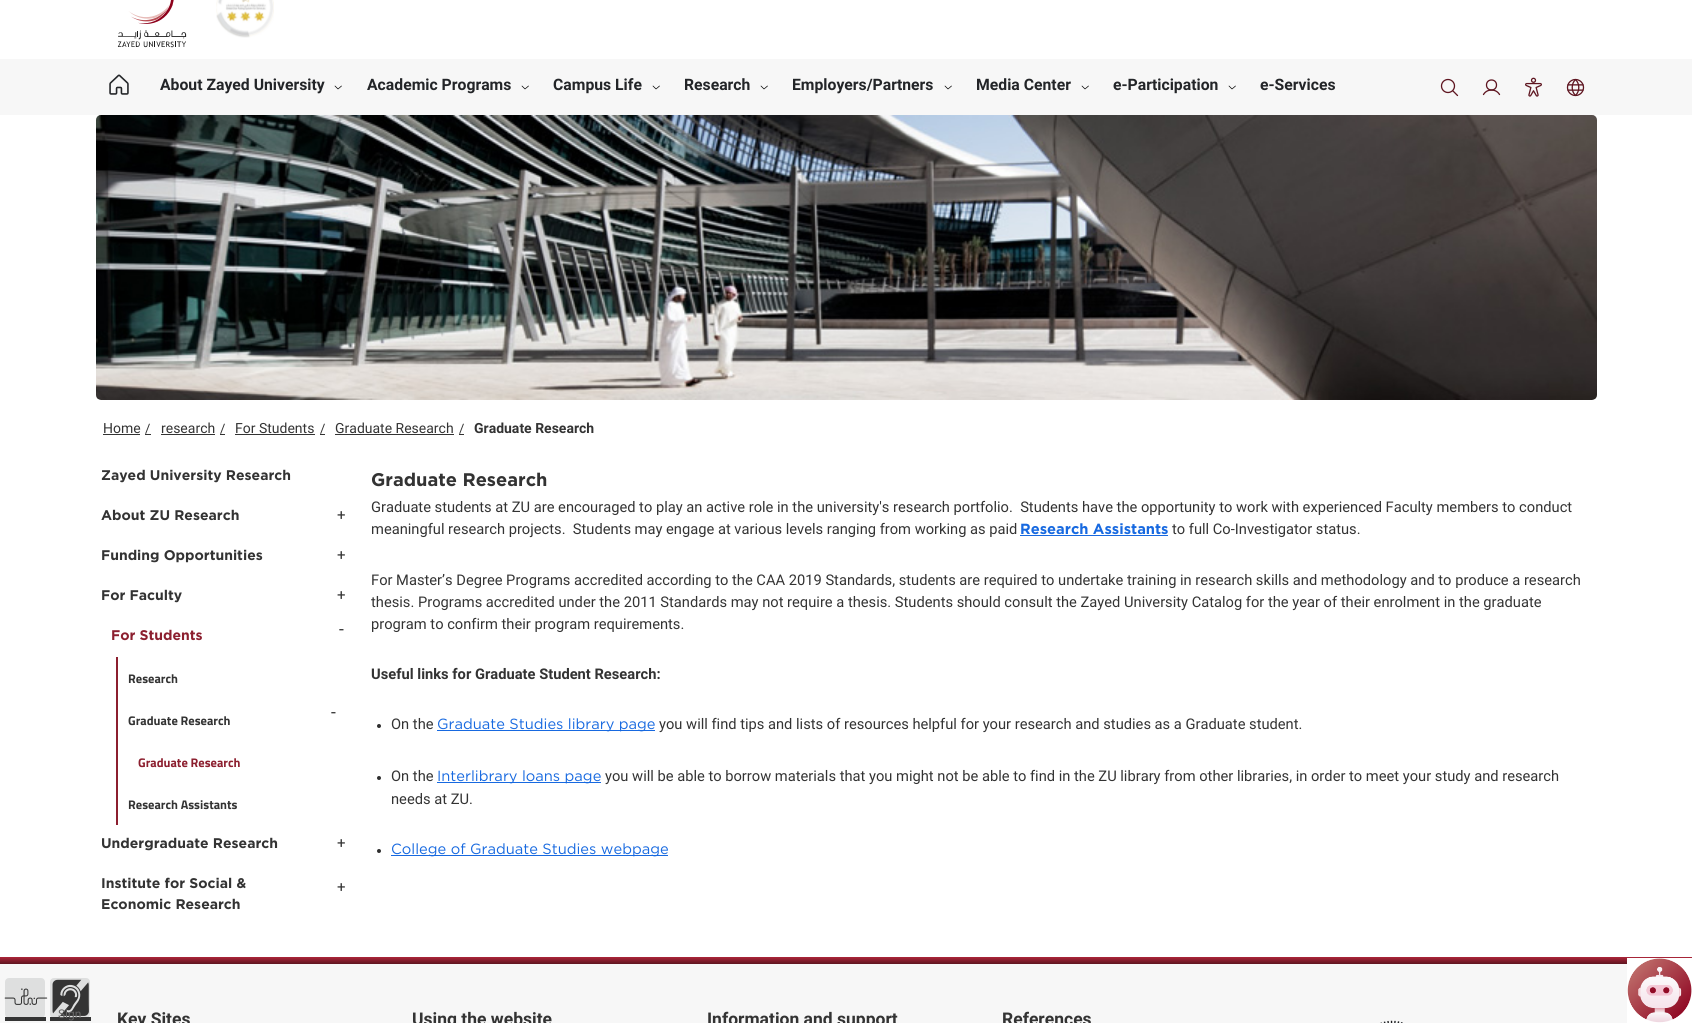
import math
import cairo

surface = cairo.ImageSurface(cairo.FORMAT_RGB24, 1692, 1023)
c = cairo.Context(surface)
options = cairo.FontOptions()
options.set_hint_metrics(cairo.HINT_METRICS_OFF)
options.set_hint_style(cairo.HINT_STYLE_NONE)
c.set_font_options(options)
c.set_miter_limit(4)
def C(code):
 c.set_source_rgb(*(v / 255 for v in bytes.fromhex(code[-6:])))
def F(family, size, italic, bold):
 c.select_font_face(family, cairo.FONT_SLANT_ITALIC if italic else cairo.FONT_SLANT_NORMAL, cairo.FONT_WEIGHT_BOLD if bold else cairo.FONT_WEIGHT_NORMAL)
 c.set_font_size(size)
def T(x, y, s):
 c.move_to(x, y)
 c.show_text(s)
def R(x, y, w, h):
 c.rectangle(x, y, w, h)
 c.fill()
def Q(x, y, w, h, r):
 c.new_sub_path()
 for i, (u, v) in enumerate([(x + w - r, y + h - r), (x + r, y + h - r), (x + r, y + r), (x + w - r, y + r)]):
  c.arc(u, v, r, i * math.pi / 2, (i + 1) * math.pi / 2)
 c.close_path()
def I(path, x, y, w, h):
 c.save()
 c.set_source_surface(cairo.ImageSurface.create_from_png(path), x, y)
 c.rectangle(x, y, w, h)
 c.fill()
 c.restore()
C('ffffff')
c.paint()
I('1.png',117,0,70,48)
I('2.png',216,0,58,38)
C('f7f7f7')
R(0,59,1692,56)
I('3.png',109,74,20,21)
F('Roboto',15.75,0,1)
C('232528')
T(160,90,'About Zayed University')
c.new_path()
c.move_to(341.5,86)
c.line_to(338,89)
c.line_to(335,86)
C('000000')
c.set_line_width(.7)
c.set_line_cap(cairo.LINE_CAP_ROUND)
c.set_line_join(cairo.LINE_JOIN_ROUND)
c.stroke()
C('232528')
T(367,90,'Academic Programs')
c.new_path()
c.move_to(528.5,86)
c.line_to(525,89)
c.line_to(522,86)
C('000000')
c.stroke()
C('232528')
T(553,90,'Campus Life')
c.new_path()
c.move_to(659.5,86)
c.line_to(656,89)
c.line_to(653,86)
C('000000')
c.stroke()
C('232528')
T(684,90,'Research')
c.new_path()
c.move_to(767.5,86)
c.line_to(764,89)
c.line_to(761,86)
C('000000')
c.stroke()
C('232528')
T(792,90,'Employers/Partners')
c.new_path()
c.move_to(951.5,86)
c.line_to(948,89)
c.line_to(945,86)
C('000000')
c.stroke()
C('232528')
T(976,90,'Media Center')
c.new_path()
c.move_to(1088.5,86)
c.line_to(1085,89)
c.line_to(1082,86)
C('000000')
c.stroke()
C('232528')
T(1113,90,'e-Participation')
c.new_path()
c.move_to(1235.5,86)
c.line_to(1232,89)
c.line_to(1229,86)
C('000000')
c.stroke()
C('232528')
T(1260,90,'e-Services')
c.new_path()
c.arc(1448,86,6.5,0,2 * math.pi)
C('5e1520')
c.set_line_width(1.3)
c.set_line_cap(cairo.LINE_CAP_BUTT)
c.set_line_join(cairo.LINE_JOIN_MITER)
c.stroke()
c.new_path()
c.move_to(1453,91)
c.line_to(1457.5,95.5)
c.set_line_cap(cairo.LINE_CAP_ROUND)
c.set_line_join(cairo.LINE_JOIN_ROUND)
c.stroke()
c.arc(1491.5,85,5,0,2 * math.pi)
c.set_line_cap(cairo.LINE_CAP_BUTT)
c.set_line_join(cairo.LINE_JOIN_MITER)
c.stroke()
c.new_path()
c.move_to(1483.5,94.5)
c.curve_to(1487,88.5,1496,88.5,1499.5,94.5)
c.set_line_cap(cairo.LINE_CAP_ROUND)
c.set_line_join(cairo.LINE_JOIN_ROUND)
c.stroke()
I('4.png',1525,77,17,20)
I('5.png',1566,78,19,19)
I('6.png',96,115,1501,285)
F('Roboto',14,0,0)
C('333333')
T(103,433,'Home')
R(103,434,37,1)
F('Roboto',13,0,0)
T(145,433,'/')
R(145,434,6,1)
F('Roboto',14,0,0)
T(161,433,'research')
R(161,434,54,1)
F('Roboto',13,0,0)
T(220,433,'/')
R(220,434,5,1)
F('Roboto',14,0,0)
T(235,433,'For Students')
R(235,434,80,1)
F('Roboto',13,0,0)
T(320,433,'/')
R(320,434,5,1)
F('Roboto',14,0,0)
T(335,433,'Graduate Research')
R(335,434,119,1)
F('Roboto',13,0,0)
T(459,433,'/')
R(459,434,5,1)
F('Roboto',14,0,1)
T(474,433,'Graduate Research')
F('Gotham',14,0,1)
T(101,480,'Zayed University Research')
T(101,520,'About ZU Research')
F('Roboto',15,0,0)
T(337,520,'+')
F('Gotham',14,0,1)
T(101,560,'Funding Opportunities')
F('Roboto',15,0,0)
T(337,560,'+')
F('Gotham',14,0,1)
T(101,600,'For Faculty')
F('Roboto',15,0,0)
T(337,600,'+')
F('Gotham',14,0,1)
C('8c1f2f')
T(111,640,'For Students')
F('Roboto',17.5,0,0)
C('333333')
T(339,635,'-')
C('8c1f2f')
R(116,657,2,42)
F('Titillium Web',12.5,0,1)
C('333333')
T(128,683,'Research')
F('Roboto',17.5,0,0)
T(331,718,'-')
F('Titillium Web',12.5,0,1)
T(128,725,'Graduate Research')
C('8c1f2f')
T(138,767,'Graduate Research')
R(116,699,2,126)
C('333333')
T(128,809,'Research Assistants')
F('Gotham',14,0,1)
T(101,848,'Undergraduate Research')
F('Roboto',15,0,0)
T(337,848,'+')
F('Gotham',14,0,1)
T(101,888,'Institute for Social &')
T(101,909,'Economic Research')
F('Roboto',15,0,0)
T(337,892,'+')
F('Gotham',18.25,0,1)
T(371,486,'Graduate Research')
F('Roboto',14.7,0,0)
T(371,512,'Graduate students at ZU are encouraged to play an active role in the university\'s research portfolio.  Students have the opportunity to work with experienced Faculty members to conduct')
T(371,534,'meaningful research projects.  Students may engage at various levels ranging from working as paid')
F('Gotham',14.7,0,1)
C('1769e0')
T(1020,534,'Research Assistants')
R(1020,535,148,1)
F('Roboto',14.7,0,0)
C('333333')
T(1172,534,'to full Co-Investigator status.')
T(371,585,'For Master’s Degree Programs accredited according to the CAA 2019 Standards, students are required to undertake training in research skills and methodology and to produce a research')
T(371,607,'thesis. Programs accredited under the 2011 Standards may not require a thesis. Students should consult the Zayed University Catalog for the year of their enrolment in the graduate')
T(371,629,'program to confirm their program requirements.')
F('Roboto',14.7,0,1)
T(371,679,'Useful links for Graduate Student Research:')
C('2e2e2e')
c.new_path()
c.arc(379,726,2,0,2 * math.pi)
c.fill()
F('Roboto',14.7,0,0)
C('333333')
T(391,729,'On the')
C('1769e0')
R(437,730,218,1)
F('Gotham',14.7,0,0)
T(437,729,'Graduate Studies library page')
F('Roboto',14.7,0,0)
C('333333')
T(659,729,'you will find tips and lists of resources helpful for your research and studies as a Graduate student.')
C('2e2e2e')
c.new_path()
c.arc(379,778,2,0,2 * math.pi)
c.fill()
C('333333')
T(391,781,'On the')
C('1769e0')
R(437,782,164,1)
F('Gotham',14.7,0,0)
T(437,781,'Interlibrary loans page')
F('Roboto',14.7,0,0)
C('333333')
T(605,781,'you will be able to borrow materials that you might not be able to find in the ZU library from other libraries, in order to meet your study and research')
T(391,804,'needs at ZU.')
C('2e2e2e')
c.new_path()
c.arc(379,851,2,0,2 * math.pi)
c.fill()
C('1769e0')
R(391,855,277,1)
F('Gotham',14.7,0,0)
T(391,854,'College of Graduate Studies webpage')
C('f7f7f7')
R(0,964,1627,59)
C('dedfdf')
Q(5,978,40,40,4)
c.fill()
I('7.png',4,988,44,17)
C('343434')
R(5,1017,41,4)
C('dedfdf')
Q(50,978,40,40,4)
c.fill()
I('8.png',52,979,37,37)
C('343434')
R(50,1017,41,4)
gradient = cairo.LinearGradient(846,957,846,964)
gradient.add_color_stop_rgba(0,0.678,0.149,0.227,1)
gradient.add_color_stop_rgba(1,0.369,0.082,0.125,1)
c.set_source(gradient)
R(0,957,1692,7)
C('ffffff')
R(1627,958,65,6)
I('9.png',1627,958,65,65)
F('Roboto',12,0,0)
C('666666')
T(58,1018,'Sign')
F('Roboto',17.5,0,1)
C('333333')
T(117,1025,'Key Sites')
T(412,1025,'Using the website')
T(707,1025,'Information and support')
T(1002,1025,'References')
I('10.png',1380,1020,23,3)
surface.write_to_png('o.png')
